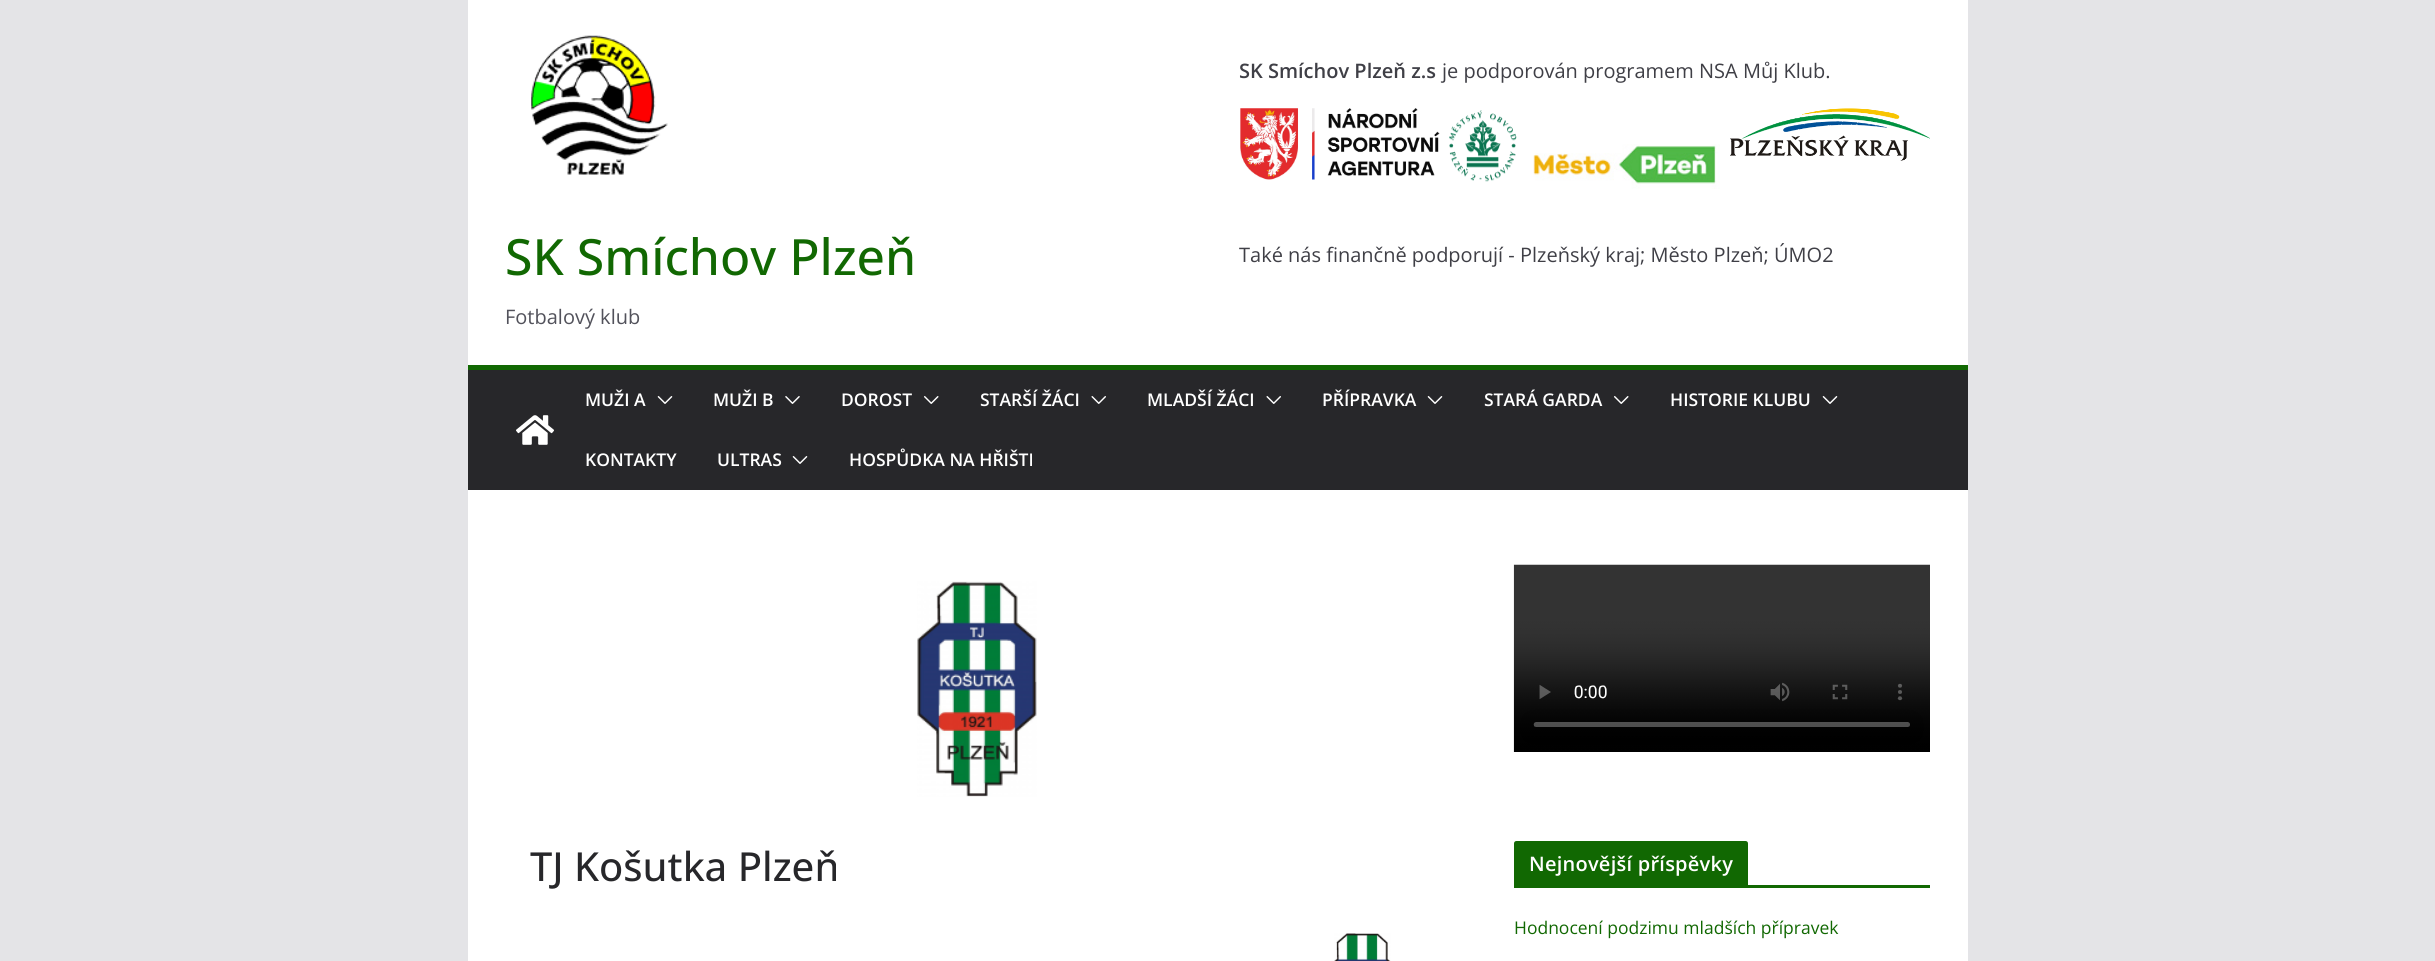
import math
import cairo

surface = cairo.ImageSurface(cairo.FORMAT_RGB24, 2435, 961)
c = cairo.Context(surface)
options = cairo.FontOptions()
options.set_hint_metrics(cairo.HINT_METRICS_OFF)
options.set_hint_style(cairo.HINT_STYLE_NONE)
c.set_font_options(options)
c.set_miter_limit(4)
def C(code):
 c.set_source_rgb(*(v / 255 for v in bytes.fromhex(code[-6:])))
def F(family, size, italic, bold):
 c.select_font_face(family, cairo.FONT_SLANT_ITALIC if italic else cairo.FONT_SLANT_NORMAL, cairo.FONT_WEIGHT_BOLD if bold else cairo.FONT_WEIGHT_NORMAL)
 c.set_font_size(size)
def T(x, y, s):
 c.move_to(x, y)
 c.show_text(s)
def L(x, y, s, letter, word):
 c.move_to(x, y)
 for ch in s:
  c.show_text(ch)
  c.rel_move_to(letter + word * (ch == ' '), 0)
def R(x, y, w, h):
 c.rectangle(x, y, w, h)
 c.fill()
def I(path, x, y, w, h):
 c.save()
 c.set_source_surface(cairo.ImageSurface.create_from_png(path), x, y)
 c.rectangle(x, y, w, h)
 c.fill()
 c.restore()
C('e4e4e7')
c.paint()
C('ffffff')
R(468,0,1500,365)
F('Open Sans SemiBold',20,0,0)
C('3f3f46')
T(1239,78,'SK Smíchov Plzeň z.s')
F('Open Sans',20,0,0)
T(1442,78,'je podporován programem NSA Můj Klub.')
I('1.png',1240,108,200,72)
I('2.png',1449,110,68,72)
I('3.png',1533,144,187,45)
I('4.png',1730,108,200,53)
T(1239,262,'Také nás finančně podporují - Plzeňský kraj; Město Plzeň; ÚMO2')
I('5.png',531,35,137,140)
F('Open Sans Medium',50,0,0)
C('116802')
T(505,275,'SK Smíchov Plzeň')
F('Open Sans',20,0,0)
C('52525b')
T(505,324,'Fotbalový klub')
C('27272a')
R(468,370,1500,120)
C('116802')
R(468,365,1500,5)
I('6.png',516,415,38,30)
F('Open Sans SemiBold',17.5,0,0)
C('ffffff')
T(585,406,'MUŽI A')
I('7.png',657,396,16,8)
T(713,406,'MUŽI B')
I('8.png',785,396,15,8)
T(841,406,'DOROST')
I('9.png',924,396,15,8)
T(980,406,'STARŠÍ ŽÁCI')
I('10.png',1091,396,15,8)
T(1147,406,'MLADŠÍ ŽÁCI')
I('10.png',1266,396,15,8)
T(1322,406,'PŘÍPRAVKA')
I('7.png',1427,396,16,8)
T(1484,406,'STARÁ GARDA')
I('9.png',1614,396,15,8)
T(1670,406,'HISTORIE KLUBU')
I('7.png',1822,396,16,8)
T(585,466,'KONTAKTY')
T(717,466,'ULTRAS')
I('7.png',792,456,16,8)
T(849,466,'HOSPŮDKA NA HŘIŠTI')
R(468,490,1500,471)
I('11.png',917,581,120,216)
F('Open Sans Medium',40,0,0)
C('27272a')
T(530,881,'TJ Košutka Plzeň')
I('12.png',1334,933,57,28)
I('13.png',1513,564,417,188)
C('116802')
R(1514,885,416,3)
c.new_path()
c.move_to(1516.5,841)
c.line_to(1745.5,841)
c.curve_to(1747,841,1748,842,1748,843.5)
c.line_to(1748,885)
c.line_to(1514,885)
c.line_to(1514,843.5)
c.curve_to(1514,842,1515,841,1516.5,841)
c.close_path()
c.fill()
F('Open Sans SemiBold',20,0,0)
C('ffffff')
L(1529,871,'Nejnovější příspěvky',.25,0)
F('Open Sans',17.5,0,0)
C('116802')
T(1514,934,'Hodnocení podzimu mladších přípravek')
surface.write_to_png('o.png')
